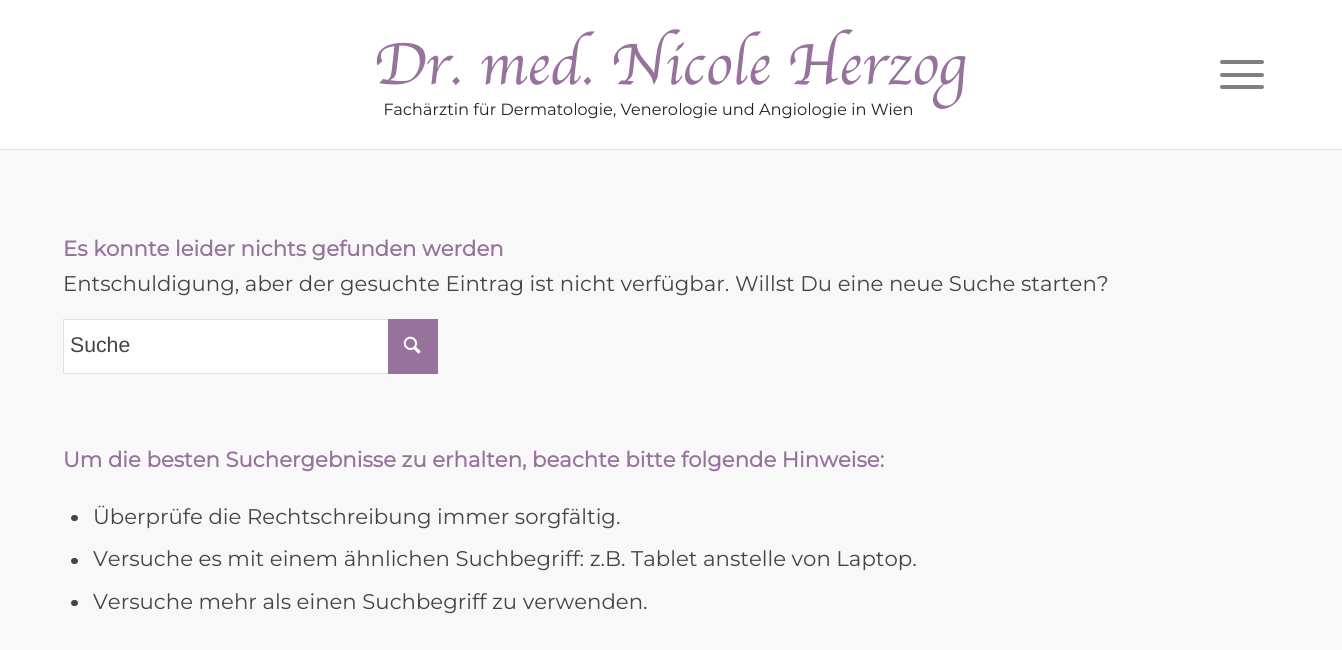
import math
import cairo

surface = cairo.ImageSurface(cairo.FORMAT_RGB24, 1342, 650)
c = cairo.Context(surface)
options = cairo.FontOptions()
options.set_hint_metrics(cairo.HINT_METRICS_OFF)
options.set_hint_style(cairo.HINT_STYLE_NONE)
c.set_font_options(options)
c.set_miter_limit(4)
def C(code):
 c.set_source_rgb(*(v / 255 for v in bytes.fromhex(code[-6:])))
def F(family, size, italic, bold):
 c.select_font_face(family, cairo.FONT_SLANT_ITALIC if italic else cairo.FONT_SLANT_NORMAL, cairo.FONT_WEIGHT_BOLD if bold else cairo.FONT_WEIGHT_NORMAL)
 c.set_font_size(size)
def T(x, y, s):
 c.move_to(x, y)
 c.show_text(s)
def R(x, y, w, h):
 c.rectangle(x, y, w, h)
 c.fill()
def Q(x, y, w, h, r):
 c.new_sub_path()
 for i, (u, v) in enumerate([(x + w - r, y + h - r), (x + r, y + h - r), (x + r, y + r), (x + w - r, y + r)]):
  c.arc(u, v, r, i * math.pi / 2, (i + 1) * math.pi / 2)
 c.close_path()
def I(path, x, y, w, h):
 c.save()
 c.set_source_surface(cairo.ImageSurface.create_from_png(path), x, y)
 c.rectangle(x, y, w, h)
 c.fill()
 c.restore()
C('ffffff')
c.paint()
I('1.png',376,29,590,90)
C('808080')
Q(1220,73,44,4,2)
c.fill()
Q(1220,60,44,4,2)
c.fill()
Q(1220,85,44,4,2)
c.fill()
C('f8f8f8')
R(0,150,1342,500)
C('e1e1e1')
R(0,149,1342,1)
F('Montserrat',21.25,0,1)
C('96729c')
T(63,256,'Es konnte leider nichts gefunden werden')
F('Montserrat Thin',21.25,0,0)
C('444444')
T(63,291,'Entschuldigung, aber der gesuchte Eintrag ist nicht verfügbar. Willst Du eine neue Suche starten?')
C('ffffff')
R(64,320,324,53)
c.rectangle(63.5,319.5,374,54)
C('e1e1e1')
c.set_line_width(1)
c.stroke()
F('Liberation Sans',21.25,0,0)
C('444444')
T(70,352,'Suche')
C('96729c')
R(388,319,50,55)
I('2.png',403,336,18,18)
F('Montserrat',21.25,0,1)
T(63,467,'Um die besten Suchergebnisse zu erhalten, beachte bitte folgende Hinweise:')
C('444444')
Q(71,515,7,6,3)
c.fill()
F('Montserrat Thin',21.25,0,0)
T(93,524,'Überprüfe die Rechtschreibung immer sorgfältig.')
Q(71,558,7,6,3)
c.fill()
T(93,566,'Versuche es mit einem ähnlichen Suchbegriff: z.B. Tablet anstelle von Laptop.')
Q(71,600,7,6,3)
c.fill()
T(93,609,'Versuche mehr als einen Suchbegriff zu verwenden.')
surface.write_to_png('o.png')
